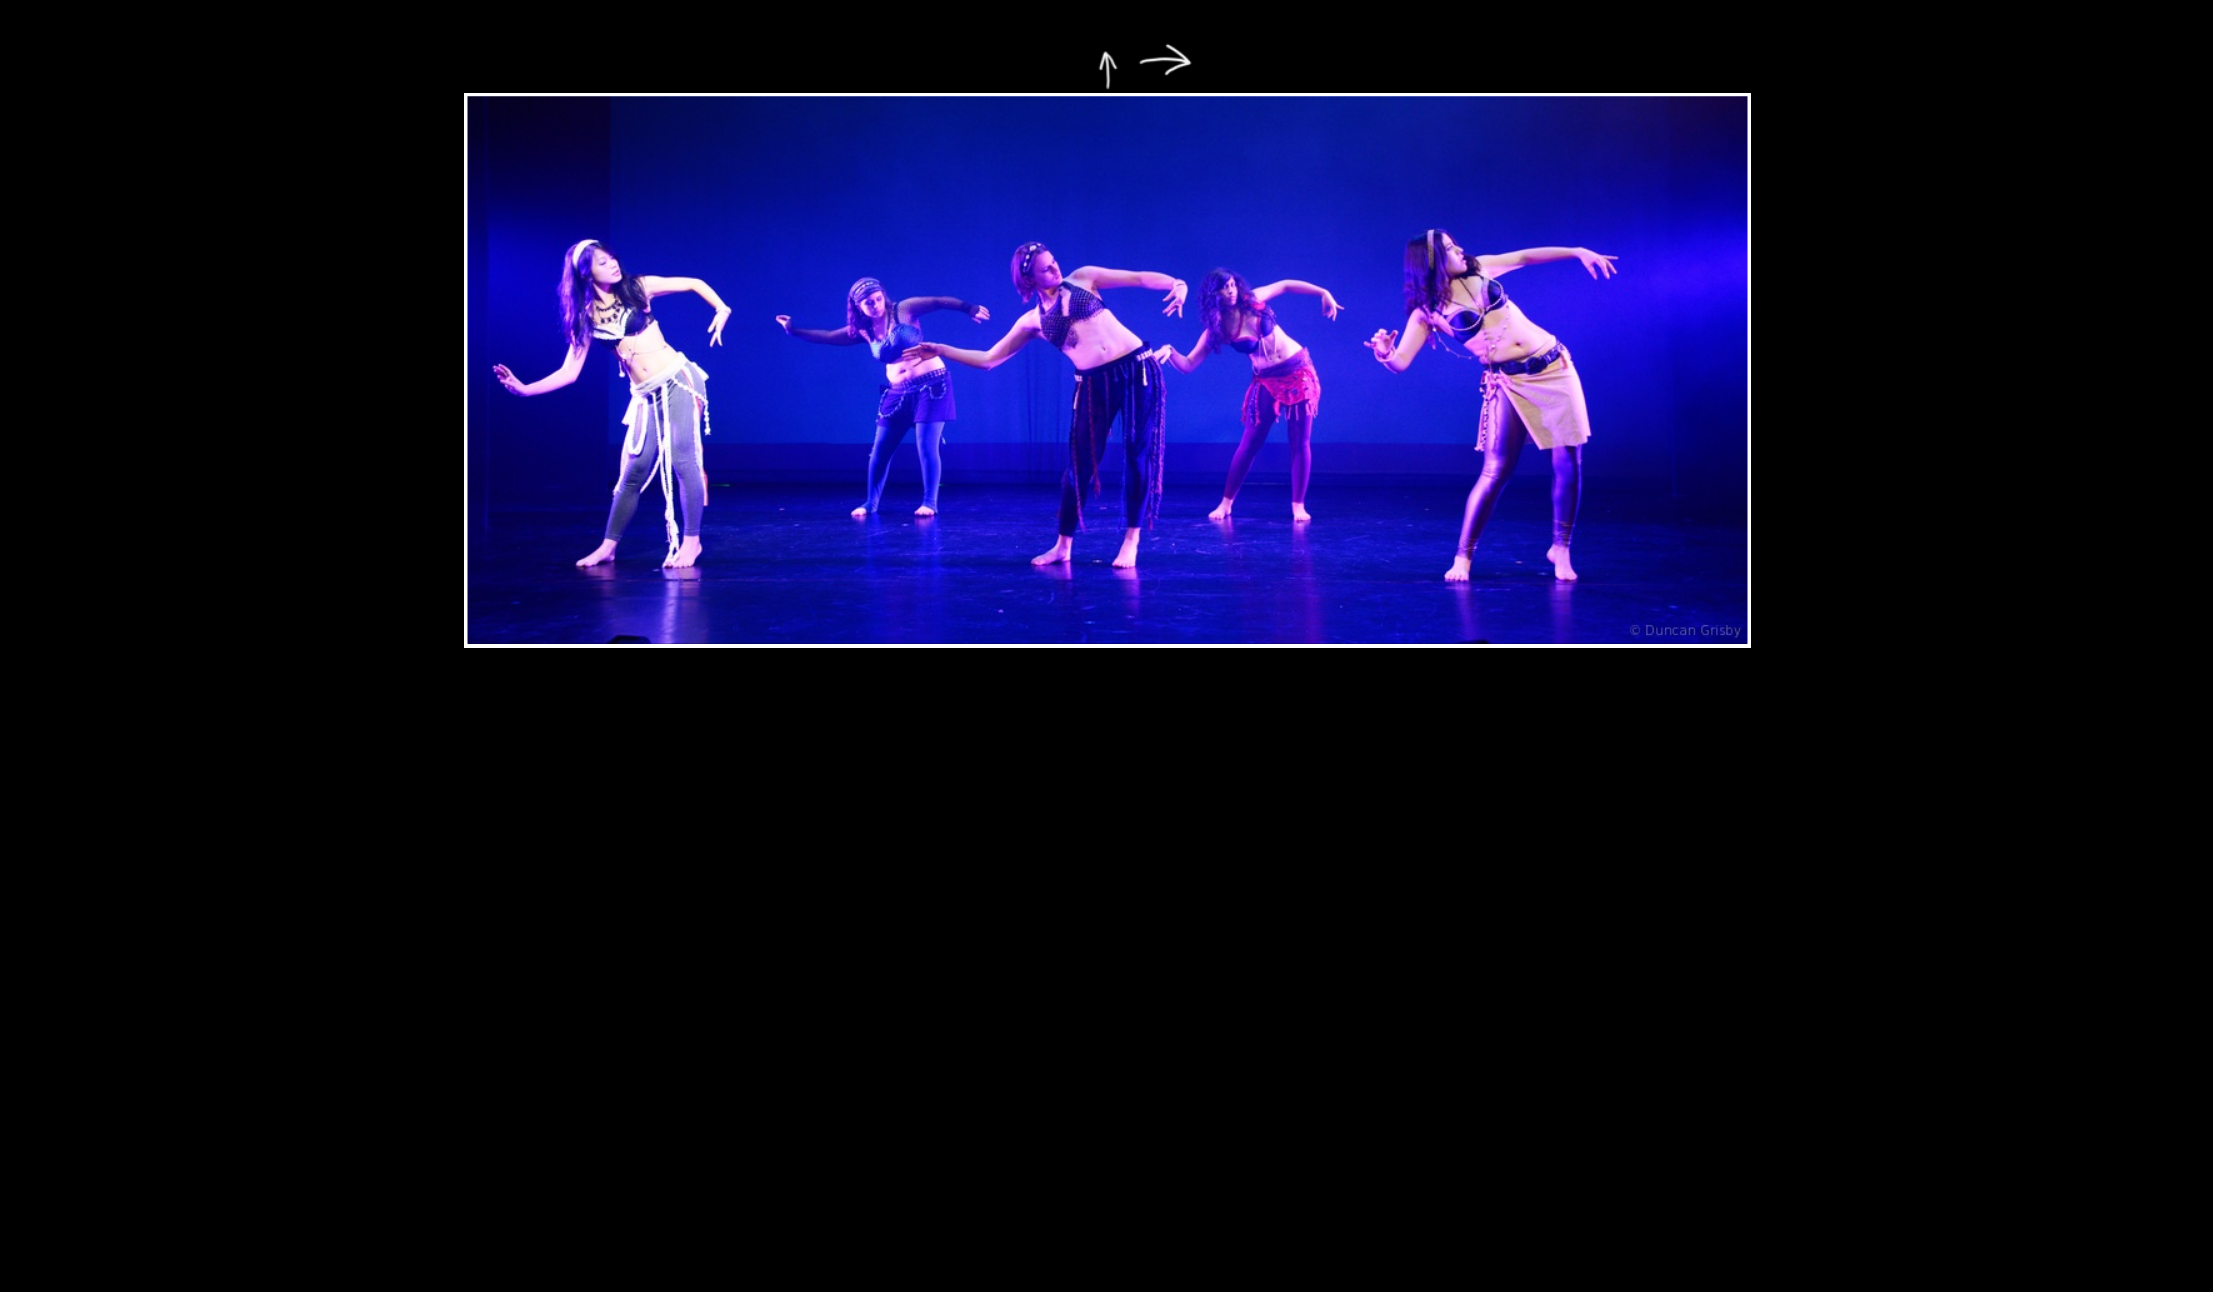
import math
import cairo

surface = cairo.ImageSurface(cairo.FORMAT_RGB24, 2213, 1292)
c = cairo.Context(surface)
options = cairo.FontOptions()
options.set_hint_metrics(cairo.HINT_METRICS_OFF)
options.set_hint_style(cairo.HINT_STYLE_NONE)
c.set_font_options(options)
c.set_miter_limit(4)
def C(code):
 c.set_source_rgb(*(v / 255 for v in bytes.fromhex(code[-6:])))
def I(path, x, y, w, h):
 c.save()
 c.set_source_surface(cairo.ImageSurface.create_from_png(path), x, y)
 c.rectangle(x, y, w, h)
 c.fill()
 c.restore()
C('000000')
c.paint()
I('1.png',1098,51,20,39)
I('2.png',1138,43,54,33)
c.rectangle(466,95,1283,551)
C('ffffff')
c.set_line_width(4)
c.stroke()
I('3.png',467,96,1281,548)
surface.write_to_png('o.png')
